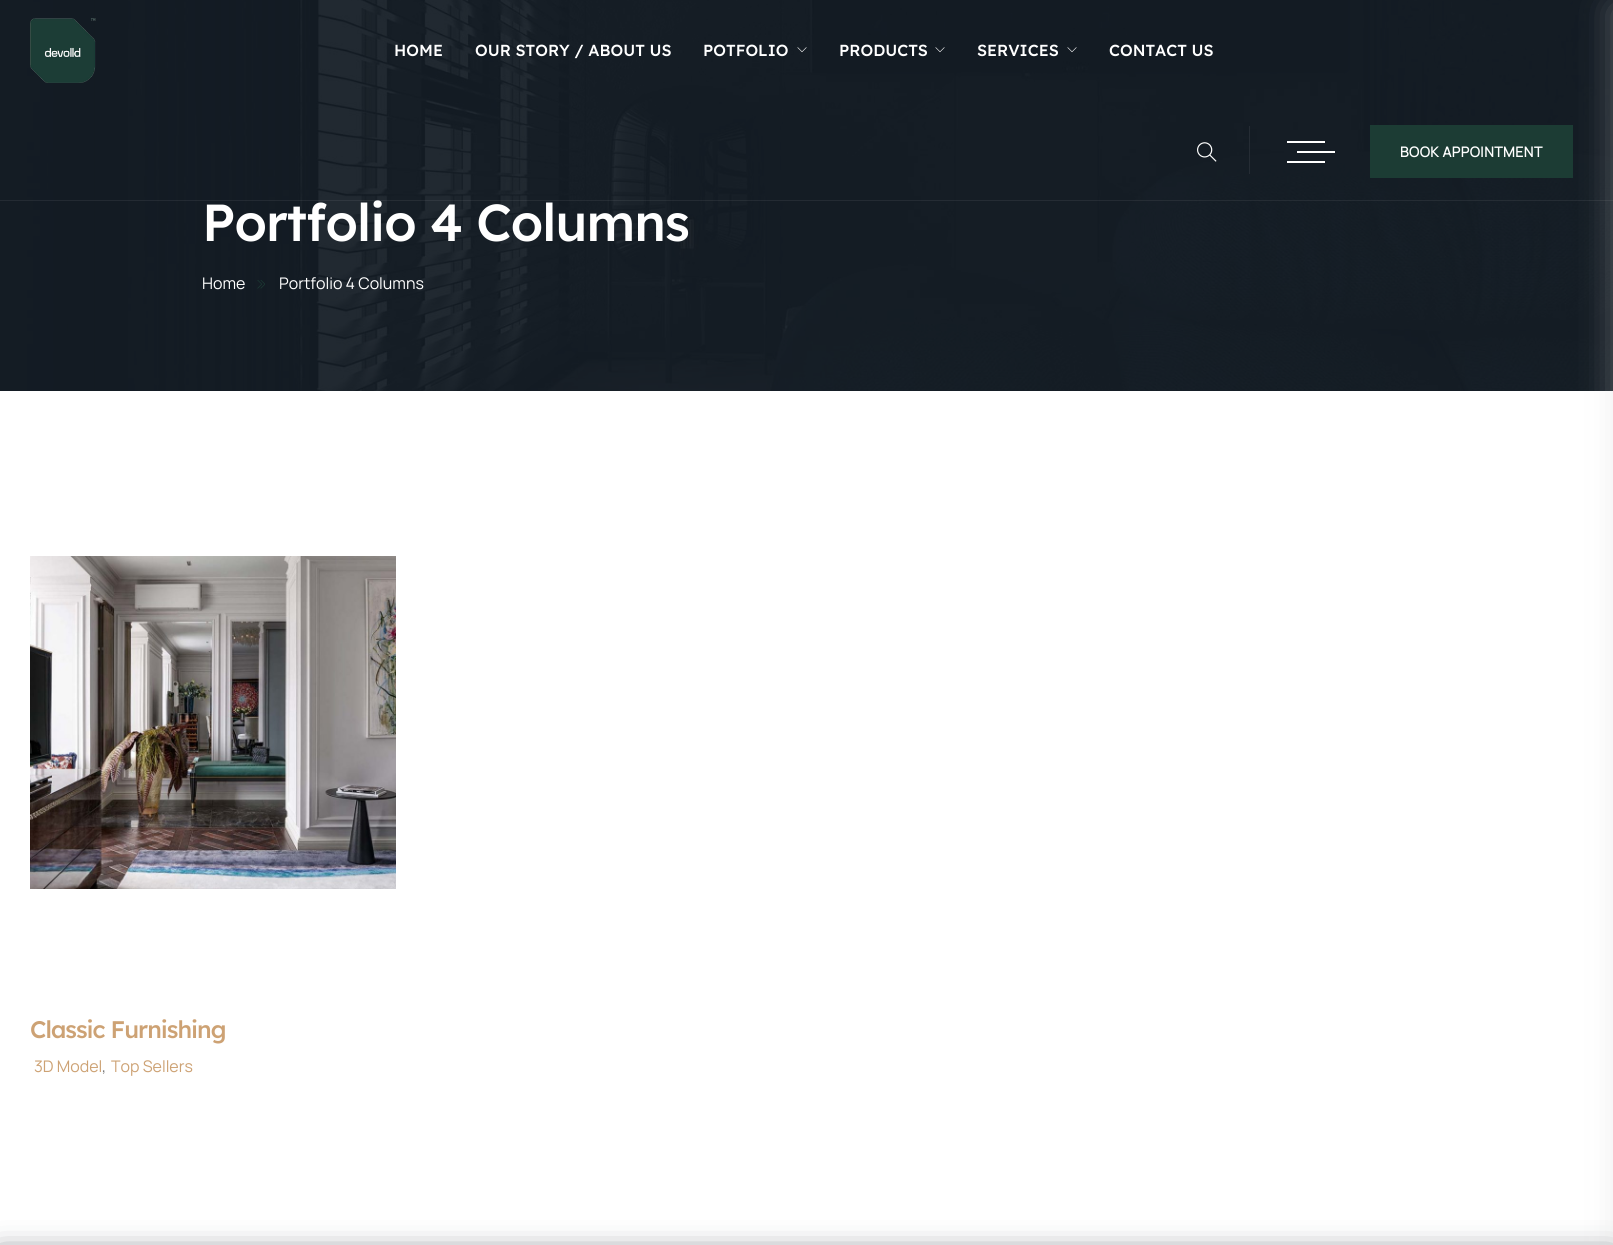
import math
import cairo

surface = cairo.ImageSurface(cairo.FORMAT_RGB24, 1613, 1245)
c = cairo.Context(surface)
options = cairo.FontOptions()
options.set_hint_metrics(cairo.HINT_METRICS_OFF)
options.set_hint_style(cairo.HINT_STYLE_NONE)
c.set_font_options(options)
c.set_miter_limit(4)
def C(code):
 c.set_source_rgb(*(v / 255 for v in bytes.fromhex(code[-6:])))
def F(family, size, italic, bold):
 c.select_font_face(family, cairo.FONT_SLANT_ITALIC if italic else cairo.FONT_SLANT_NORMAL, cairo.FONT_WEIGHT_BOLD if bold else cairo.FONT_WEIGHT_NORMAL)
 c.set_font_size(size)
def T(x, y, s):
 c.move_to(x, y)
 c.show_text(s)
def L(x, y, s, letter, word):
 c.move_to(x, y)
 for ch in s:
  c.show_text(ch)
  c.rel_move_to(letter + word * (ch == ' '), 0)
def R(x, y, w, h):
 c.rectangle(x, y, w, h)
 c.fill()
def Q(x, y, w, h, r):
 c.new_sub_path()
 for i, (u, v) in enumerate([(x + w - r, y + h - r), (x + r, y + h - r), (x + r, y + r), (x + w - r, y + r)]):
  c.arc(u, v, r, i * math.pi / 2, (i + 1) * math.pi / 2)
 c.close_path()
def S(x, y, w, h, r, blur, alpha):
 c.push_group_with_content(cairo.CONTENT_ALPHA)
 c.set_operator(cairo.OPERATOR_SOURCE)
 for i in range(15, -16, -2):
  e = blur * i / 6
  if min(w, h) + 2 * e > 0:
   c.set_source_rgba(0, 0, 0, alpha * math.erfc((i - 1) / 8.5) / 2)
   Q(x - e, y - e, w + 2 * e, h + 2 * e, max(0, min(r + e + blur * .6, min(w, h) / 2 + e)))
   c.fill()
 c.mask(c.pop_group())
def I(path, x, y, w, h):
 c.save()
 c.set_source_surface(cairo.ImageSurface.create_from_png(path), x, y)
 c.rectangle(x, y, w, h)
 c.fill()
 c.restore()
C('ffffff')
c.paint()
I('6.png',0,0,1613,391)
c.set_source_rgba(1,1,1,0.07)
R(0,200,1613,1)
I('1.png',30,18,66,65)
F('Lexend Medium',16,0,0)
C('ffffff')
T(394,56,'HOME')
T(475,56,'OUR STORY / ABOUT US')
T(703,56,'POTFOLIO')
I('2.png',797,47,10,6)
T(839,56,'PRODUCTS')
I('3.png',935,47,10,6)
T(977,56,'SERVICES')
I('4.png',1067,47,10,6)
T(1109,56,'CONTACT US')
I('5.png',1197,142,20,20)
C('252c34')
R(1249,126,1,48)
C('ffffff')
R(1287,141,38,2)
R(1297,151,38,2)
R(1287,161,38,2)
C('1c3c34')
R(1370,125,203,53)
F('Manrope',14,0,1)
C('ffffff')
L(1400,157,'BOOK APPOINTMENT',.5,0)
F('Lexend Medium',52,0,0)
L(202,241,'Portfolio 4 Columns',-1,0)
F('Manrope ExtraLight',16,0,0)
T(202,289,'Home')
I('7.png',257,280,8,9)
T(279,289,'Portfolio 4 Columns')
I('8.png',30,556,366,333)
F('Lexend Medium',24,0,0)
C('cda274')
L(30,1038,'Classic Furnishing',-1,0)
F('Manrope ExtraLight',16,0,0)
T(34,1072,'3D Model')
C('797979')
T(102,1072,',')
C('cda274')
T(111,1072,'Top Sellers')
C('131b24')
S(0,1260,1613,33,0,16,1)
C('d6d6d6')
S(1613,8,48,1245,0,16,.37)
surface.write_to_png('o.png')
